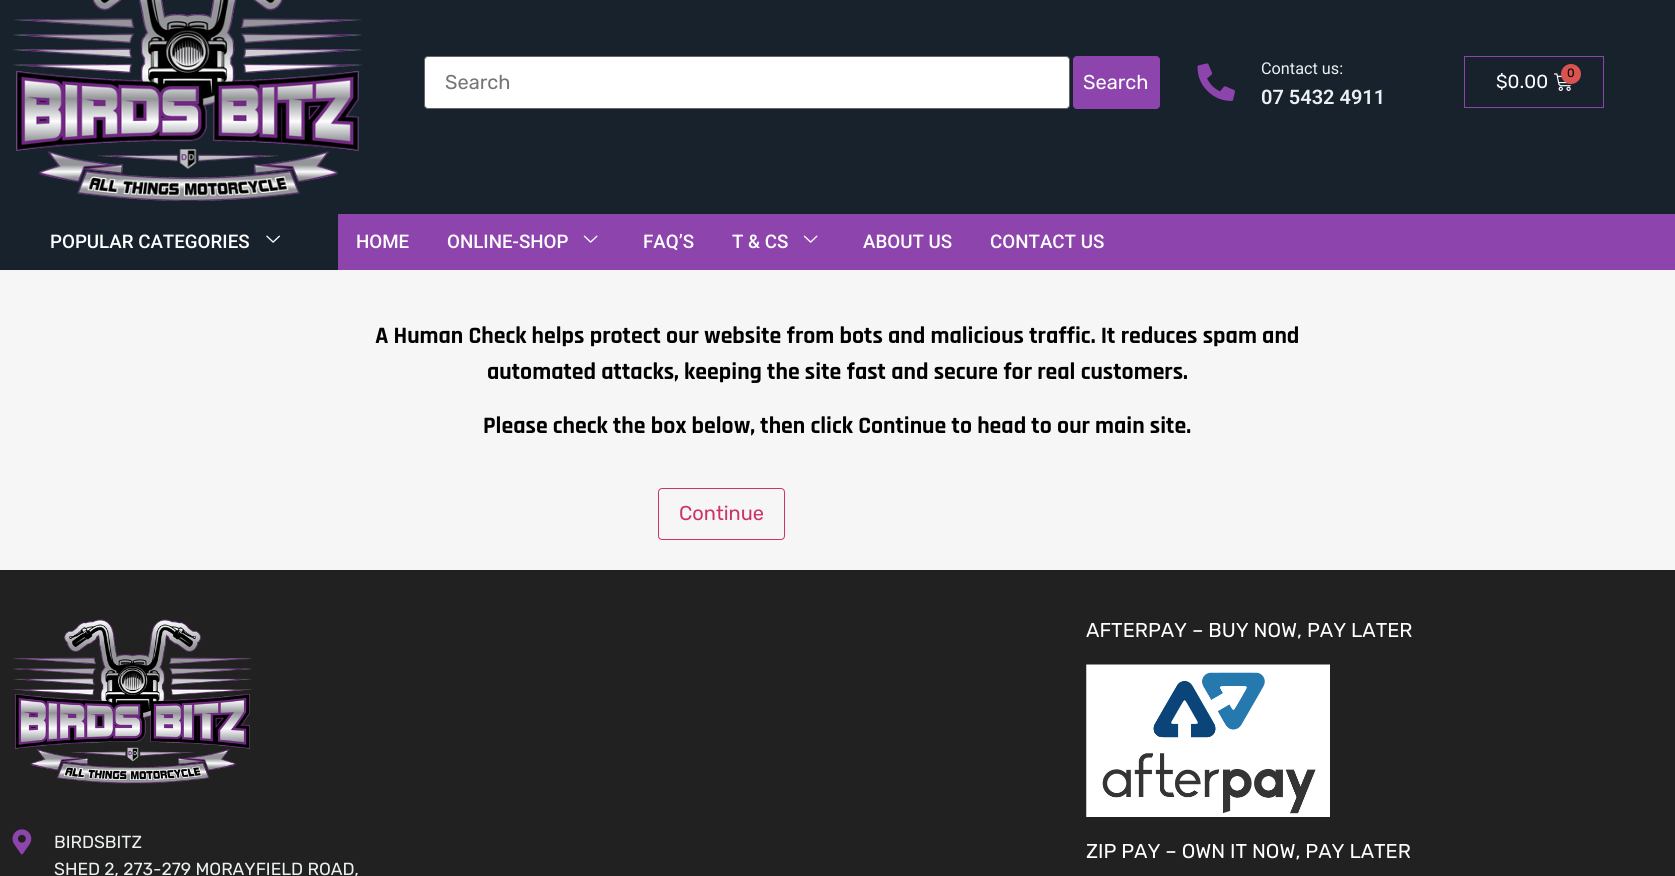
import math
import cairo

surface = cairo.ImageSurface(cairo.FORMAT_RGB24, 1675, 876)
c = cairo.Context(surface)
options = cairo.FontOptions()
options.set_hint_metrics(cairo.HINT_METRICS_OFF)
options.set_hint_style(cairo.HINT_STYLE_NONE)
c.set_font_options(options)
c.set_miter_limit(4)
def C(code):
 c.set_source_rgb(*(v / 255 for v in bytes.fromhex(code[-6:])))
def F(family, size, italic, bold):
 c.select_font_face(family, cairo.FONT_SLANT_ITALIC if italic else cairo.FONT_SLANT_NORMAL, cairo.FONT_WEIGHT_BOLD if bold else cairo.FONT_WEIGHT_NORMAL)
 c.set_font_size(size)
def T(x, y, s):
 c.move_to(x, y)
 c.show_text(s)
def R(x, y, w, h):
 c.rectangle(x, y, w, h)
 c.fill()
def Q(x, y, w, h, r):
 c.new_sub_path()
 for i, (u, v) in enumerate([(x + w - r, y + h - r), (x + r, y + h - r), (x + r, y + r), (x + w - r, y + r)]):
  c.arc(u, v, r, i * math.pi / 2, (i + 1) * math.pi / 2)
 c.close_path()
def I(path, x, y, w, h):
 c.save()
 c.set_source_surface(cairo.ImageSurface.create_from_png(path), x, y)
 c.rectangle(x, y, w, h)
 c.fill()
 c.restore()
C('f6f6f6')
c.paint()
C('17222d')
R(0,0,1675,214)
I('1.png',13,0,349,201)
C('ffffff')
Q(424.5,56.5,645,52,3.5)
c.fill_preserve()
C('666666')
c.set_line_width(1)
c.stroke()
F('Rubik',20,0,0)
C('757575')
T(445,89,'Search')
C('8e44ad')
Q(1073.5,56.5,86,52,3.5)
c.fill_preserve()
c.stroke()
C('ffffff')
T(1083,89,'Search')
I('2.png',1197,63,38,38)
F('Roboto',16.25,0,0)
C('ecf0f1')
T(1261,74,'Contact us:')
F('Roboto SemiBold',20,0,0)
T(1261,104,'07 5432 4911')
c.rectangle(1464.5,56.5,139,51)
C('8e44ad')
c.stroke()
F('Rubik',18.75,0,0)
C('ffffff')
T(1496,88,'$0.00')
I('3.png',1554,73,17,18)
C('d9534f')
c.arc(1571,74,10,0,2 * math.pi)
c.fill()
F('Rubik',12,0,0)
C('000000')
T(1567,77,'0')
C('8e44ad')
R(338,214,1337,56)
C('17222d')
R(0,214,338,56)
F('Roboto Medium',18.75,0,0)
C('ffffff')
T(50,248,'POPULAR CATEGORIES')
I('4.png',266,235,14,8)
T(356,248,'HOME')
T(447,248,'ONLINE-SHOP')
I('5.png',583,235,15,8)
T(643,248,'FAQ’S')
T(732,248,'T & CS')
I('5.png',803,235,15,8)
T(863,248,'ABOUT US')
T(990,248,'CONTACT US')
F('Rajdhani',23.75,0,1)
C('000000')
T(375,343,'A Human Check helps protect our website from bots and malicious traffic. It reduces spam and')
T(487,379,'automated attacks, keeping the site fast and secure for real customers.')
T(483,433,'Please check the box below, then click Continue to head to our main site.')
Q(658.5,488.5,126,51,3.5)
C('cc3366')
c.stroke()
F('Rubik',20,0,0)
T(679,520,'Continue')
C('212121')
R(0,570,1675,306)
I('6.png',13,619,239,165)
I('7.png',12,829,20,26)
F('Rubik',17.5,0,0)
C('ecf0f1')
T(54,848,'BIRDSBITZ')
T(54,875,'SHED 2, 273-279 MORAYFIELD ROAD,')
F('Rubik',20,0,0)
C('ffffff')
T(1086,637,'AFTERPAY – BUY NOW, PAY LATER')
I('8.png',1086,664,244,153)
T(1086,858,'ZIP PAY – OWN IT NOW, PAY LATER')
surface.write_to_png('o.png')
